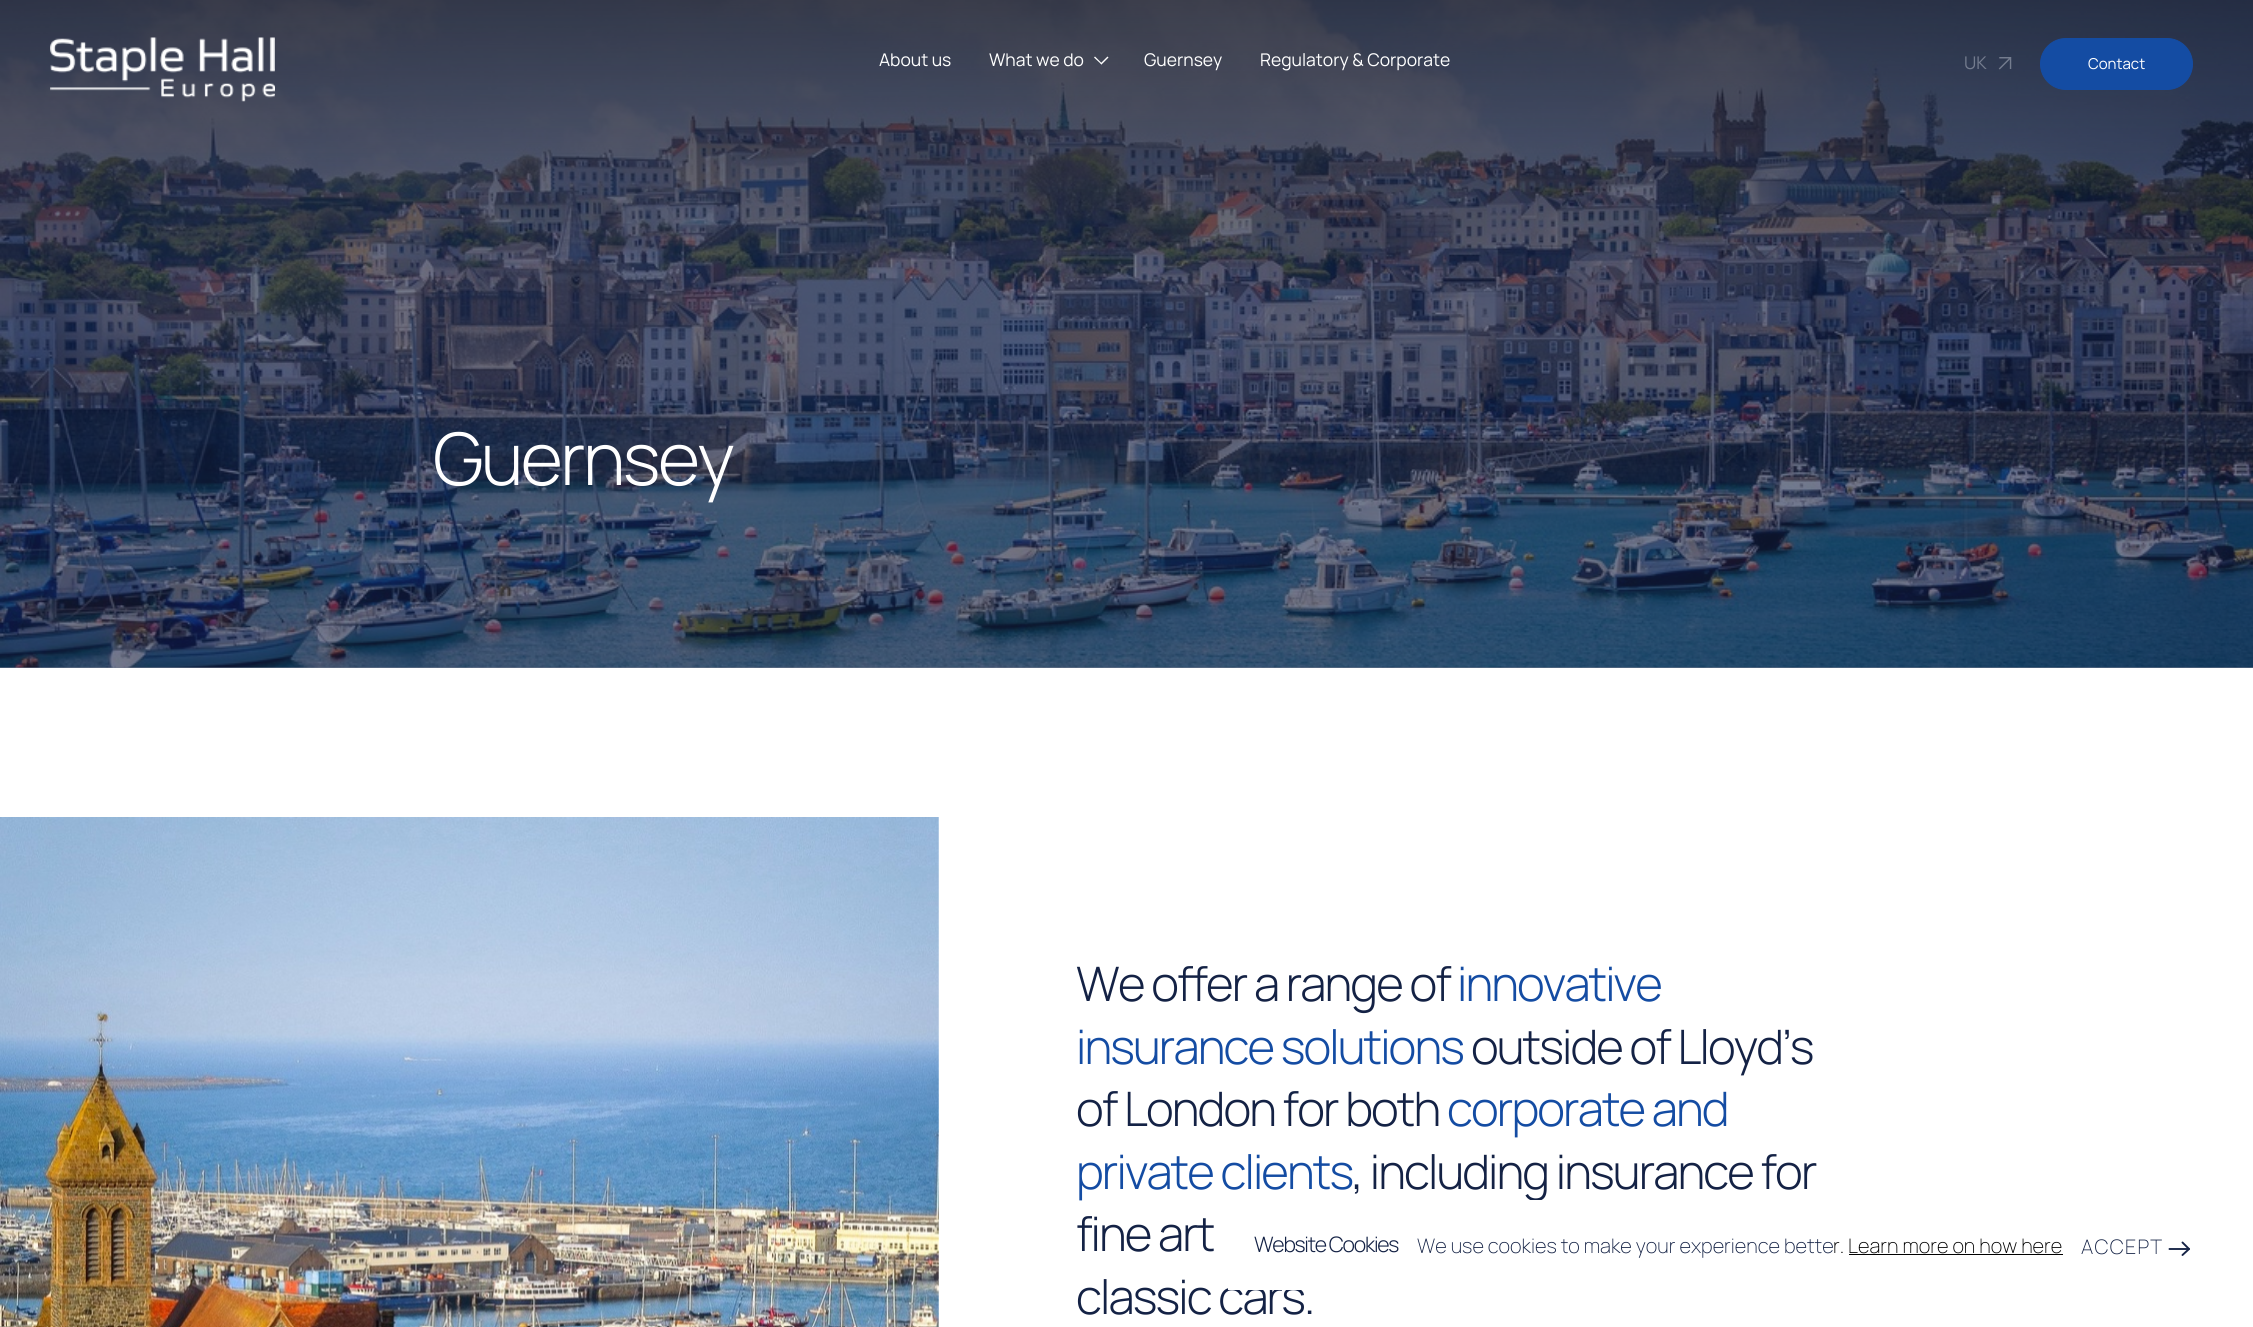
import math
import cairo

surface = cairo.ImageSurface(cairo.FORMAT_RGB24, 2253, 1327)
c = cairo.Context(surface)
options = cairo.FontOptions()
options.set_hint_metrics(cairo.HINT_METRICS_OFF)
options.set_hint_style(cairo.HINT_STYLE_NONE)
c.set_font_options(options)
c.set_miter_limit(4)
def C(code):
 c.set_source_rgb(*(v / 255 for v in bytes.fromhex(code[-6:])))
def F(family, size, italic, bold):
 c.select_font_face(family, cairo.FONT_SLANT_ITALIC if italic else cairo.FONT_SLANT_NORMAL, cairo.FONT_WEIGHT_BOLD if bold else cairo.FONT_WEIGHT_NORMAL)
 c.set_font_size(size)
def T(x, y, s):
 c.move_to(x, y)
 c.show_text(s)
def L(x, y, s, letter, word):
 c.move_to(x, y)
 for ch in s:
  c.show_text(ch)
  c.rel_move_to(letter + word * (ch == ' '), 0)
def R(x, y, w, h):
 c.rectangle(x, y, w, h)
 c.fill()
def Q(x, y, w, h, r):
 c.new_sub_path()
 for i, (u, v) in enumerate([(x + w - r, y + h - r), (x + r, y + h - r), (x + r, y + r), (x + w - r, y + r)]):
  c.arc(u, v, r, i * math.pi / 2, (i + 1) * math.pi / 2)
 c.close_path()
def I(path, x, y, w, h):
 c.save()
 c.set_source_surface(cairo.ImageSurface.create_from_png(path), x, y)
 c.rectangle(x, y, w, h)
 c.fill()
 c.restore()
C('ffffff')
c.paint()
C('727a8f')
R(0,667,2253,1)
I('3.png',0,0,2253,668)
I('1.png',50,37,225,65)
F('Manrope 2 ExtraLight',17.5,0,0)
C('ffffff')
T(879,66,'About us')
T(989,66,'What we do')
c.new_path()
c.move_to(1100.5,63.5)
c.line_to(1107.5,56.5)
c.line_to(1108.5,57.5)
c.line_to(1101.5,64.5)
c.close_path()
c.fill()
c.new_path()
c.move_to(1094,57.5)
c.line_to(1095,56.5)
c.line_to(1102,63.5)
c.line_to(1101.5,64.5)
c.close_path()
c.fill()
T(1144,66,'Guernsey')
T(1260,66,'Regulatory & Corporate')
C('747c8e')
T(1964,69,'UK')
I('2.png',1998,57,14,13)
C('144ca3')
Q(2040.5,38.5,152,51,25.5)
c.fill_preserve()
c.set_line_width(1)
c.stroke()
F('Manrope 2 ExtraLight',15,0,0)
C('ffffff')
T(2088,69,'Contact')
F('Manrope Light',72.5,0,0)
L(433,485,'Guernsey',-2.5,0)
I('4.png',0,817,939,510)
F('Manrope Light',47.5,0,0)
C('142245')
L(1076,1001,'We offer a range of',-1.9,0)
C('144ca3')
L(1457,1001,'innovative',-1.9,0)
L(1076,1064,'insurance solutions',-1.9,0)
C('142245')
L(1471,1064,'outside of Lloyd’s',-1.9,0)
L(1076,1126,'of London for both',-1.9,0)
C('144ca3')
L(1447,1126,'corporate and',-1.9,0)
L(1076,1189,'private clients',-1.9,0)
C('142245')
L(1352,1189,', including insurance for',-1.9,0)
L(1076,1251,'fine art',-1.9,0)
L(1076,1314,'classic cars.',-1.9,0)
C('ffffff')
R(1228,1200,314,90)
F('Manrope Light',21.25,0,0)
C('142245')
L(1254,1252,'Website Cookies',-1.25,0)
F('Manrope ExtraLight',20,0,0)
T(1417,1253,'We use cookies to make your experience bette')
C('000000')
T(1833,1253,'r. Learn more on how here')
R(1849,1254,214,1)
C('142245')
L(2081,1254,'ACCEPT',1.25,0)
c.new_path()
c.move_to(2182.5,1255)
c.line_to(2189,1249)
c.line_to(2182.5,1242.5)
c.set_line_width(1.9)
c.set_line_cap(cairo.LINE_CAP_ROUND)
c.set_line_join(cairo.LINE_JOIN_ROUND)
c.stroke()
c.new_path()
c.move_to(2189,1249)
c.line_to(2169.5,1249)
c.set_line_join(cairo.LINE_JOIN_MITER)
c.stroke()
surface.write_to_png('o.png')
